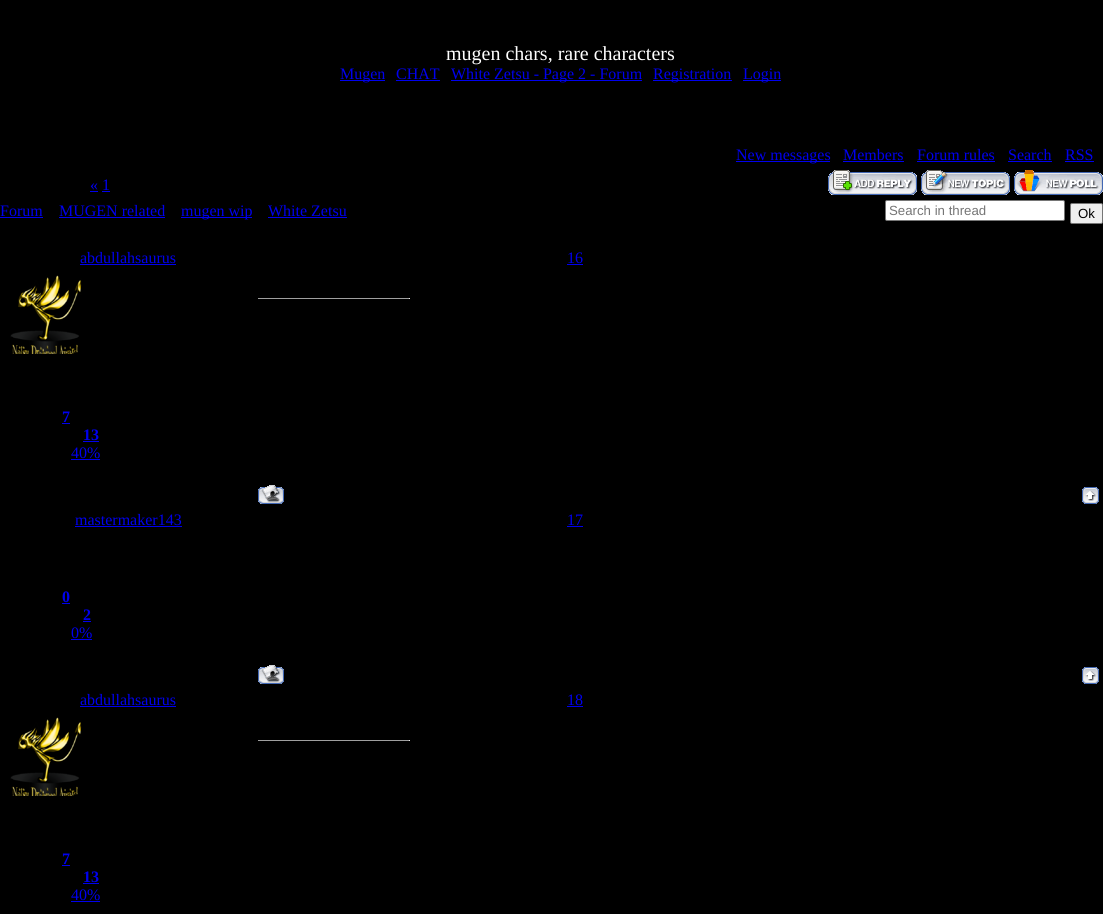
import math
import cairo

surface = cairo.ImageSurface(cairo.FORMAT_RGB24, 1103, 914)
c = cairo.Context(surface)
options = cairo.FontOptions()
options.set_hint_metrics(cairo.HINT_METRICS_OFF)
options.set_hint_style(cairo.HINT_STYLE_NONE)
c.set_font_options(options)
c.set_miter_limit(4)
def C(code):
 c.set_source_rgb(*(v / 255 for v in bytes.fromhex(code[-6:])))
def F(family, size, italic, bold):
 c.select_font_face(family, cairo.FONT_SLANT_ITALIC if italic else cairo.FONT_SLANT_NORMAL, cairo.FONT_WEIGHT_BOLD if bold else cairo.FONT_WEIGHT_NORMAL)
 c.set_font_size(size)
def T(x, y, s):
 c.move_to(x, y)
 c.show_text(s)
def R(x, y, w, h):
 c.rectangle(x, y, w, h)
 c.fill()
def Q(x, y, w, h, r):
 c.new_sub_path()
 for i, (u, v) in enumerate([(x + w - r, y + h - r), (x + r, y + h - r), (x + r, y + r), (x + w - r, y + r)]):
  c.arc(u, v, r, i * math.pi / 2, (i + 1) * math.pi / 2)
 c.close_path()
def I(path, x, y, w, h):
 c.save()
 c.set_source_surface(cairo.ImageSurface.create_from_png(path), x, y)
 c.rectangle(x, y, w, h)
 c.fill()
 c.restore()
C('000000')
c.paint()
F('Liberation Serif',20,0,0)
C('ffffff')
T(446,60,'mugen chars, rare characters')
C('0000ee')
R(340,80,45,1)
F('Liberation Serif',16,0,0)
T(340,79,'Mugen')
T(396,79,'CHAT')
R(396,80,44,1)
R(451,80,191,1)
T(451,79,'White Zetsu - Page 2 - Forum')
R(653,80,79,1)
T(653,79,'Registration')
R(743,80,38,1)
T(743,79,'Login')
R(736,161,94,1)
T(736,160,'New messages')
T(843,160,'Members')
R(843,161,61,1)
T(917,160,'Forum rules')
R(917,161,78,1)
T(1008,160,'Search')
R(1008,161,44,1)
T(1065,160,'RSS')
R(1065,161,29,1)
T(90,190,'« 1')
R(90,191,8,1)
R(102,191,8,1)
I('1.png',828,170,89,25)
I('2.png',921,170,89,25)
I('3.png',1014,170,89,25)
T(0,216,'Forum')
R(0,217,43,1)
T(59,216,'MUGEN related')
R(59,217,106,1)
R(181,217,71,1)
T(181,216,'mugen wip')
T(268,216,'White Zetsu')
R(268,217,79,1)
C('ffffff')
Q(885.5,200.5,179,20,1.5)
c.fill_preserve()
C('767676')
c.set_line_width(1)
c.stroke()
F('Liberation Sans',13.25,0,0)
C('757575')
T(889,215,'Search in thread')
C('efefef')
Q(1070.5,203.5,32,20,1.5)
c.fill_preserve()
C('767676')
c.stroke()
C('000000')
T(1078,218,'Ok')
F('Liberation Serif',16,0,0)
C('0000ee')
T(80,263,'abdullahsaurus')
R(80,264,96,1)
T(567,263,'16')
R(567,264,16,1)
C('9f9f9f')
R(258,298,152,1)
C('eeeeee')
R(409,298,1,1)
I('4.png',10,275,72,79)
F('Liberation Serif',16,0,1)
C('0000ee')
T(62,422,'7')
R(62,423,8,1)
T(83,440,'13')
R(83,441,16,1)
F('Liberation Serif',16,0,0)
T(71,458,'40%')
R(71,459,29,1)
I('5.png',258,485,26,19)
I('6.png',1082,487,17,17)
T(75,525,'mastermaker143')
R(75,526,107,1)
T(567,525,'17')
R(567,526,16,1)
F('Liberation Serif',16,0,1)
T(62,602,'0')
R(62,603,8,1)
T(83,620,'2')
R(83,621,8,1)
F('Liberation Serif',16,0,0)
T(71,638,'0%')
R(71,639,21,1)
I('5.png',258,665,26,19)
I('6.png',1082,667,17,17)
T(80,705,'abdullahsaurus')
R(80,706,96,1)
T(567,705,'18')
R(567,706,16,1)
C('9f9f9f')
R(258,740,152,1)
C('eeeeee')
R(409,740,1,1)
I('4.png',10,717,72,79)
F('Liberation Serif',16,0,1)
C('0000ee')
T(62,864,'7')
R(62,865,8,1)
T(83,882,'13')
R(83,883,16,1)
F('Liberation Serif',16,0,0)
T(71,900,'40%')
R(71,901,29,1)
surface.write_to_png('o.png')
